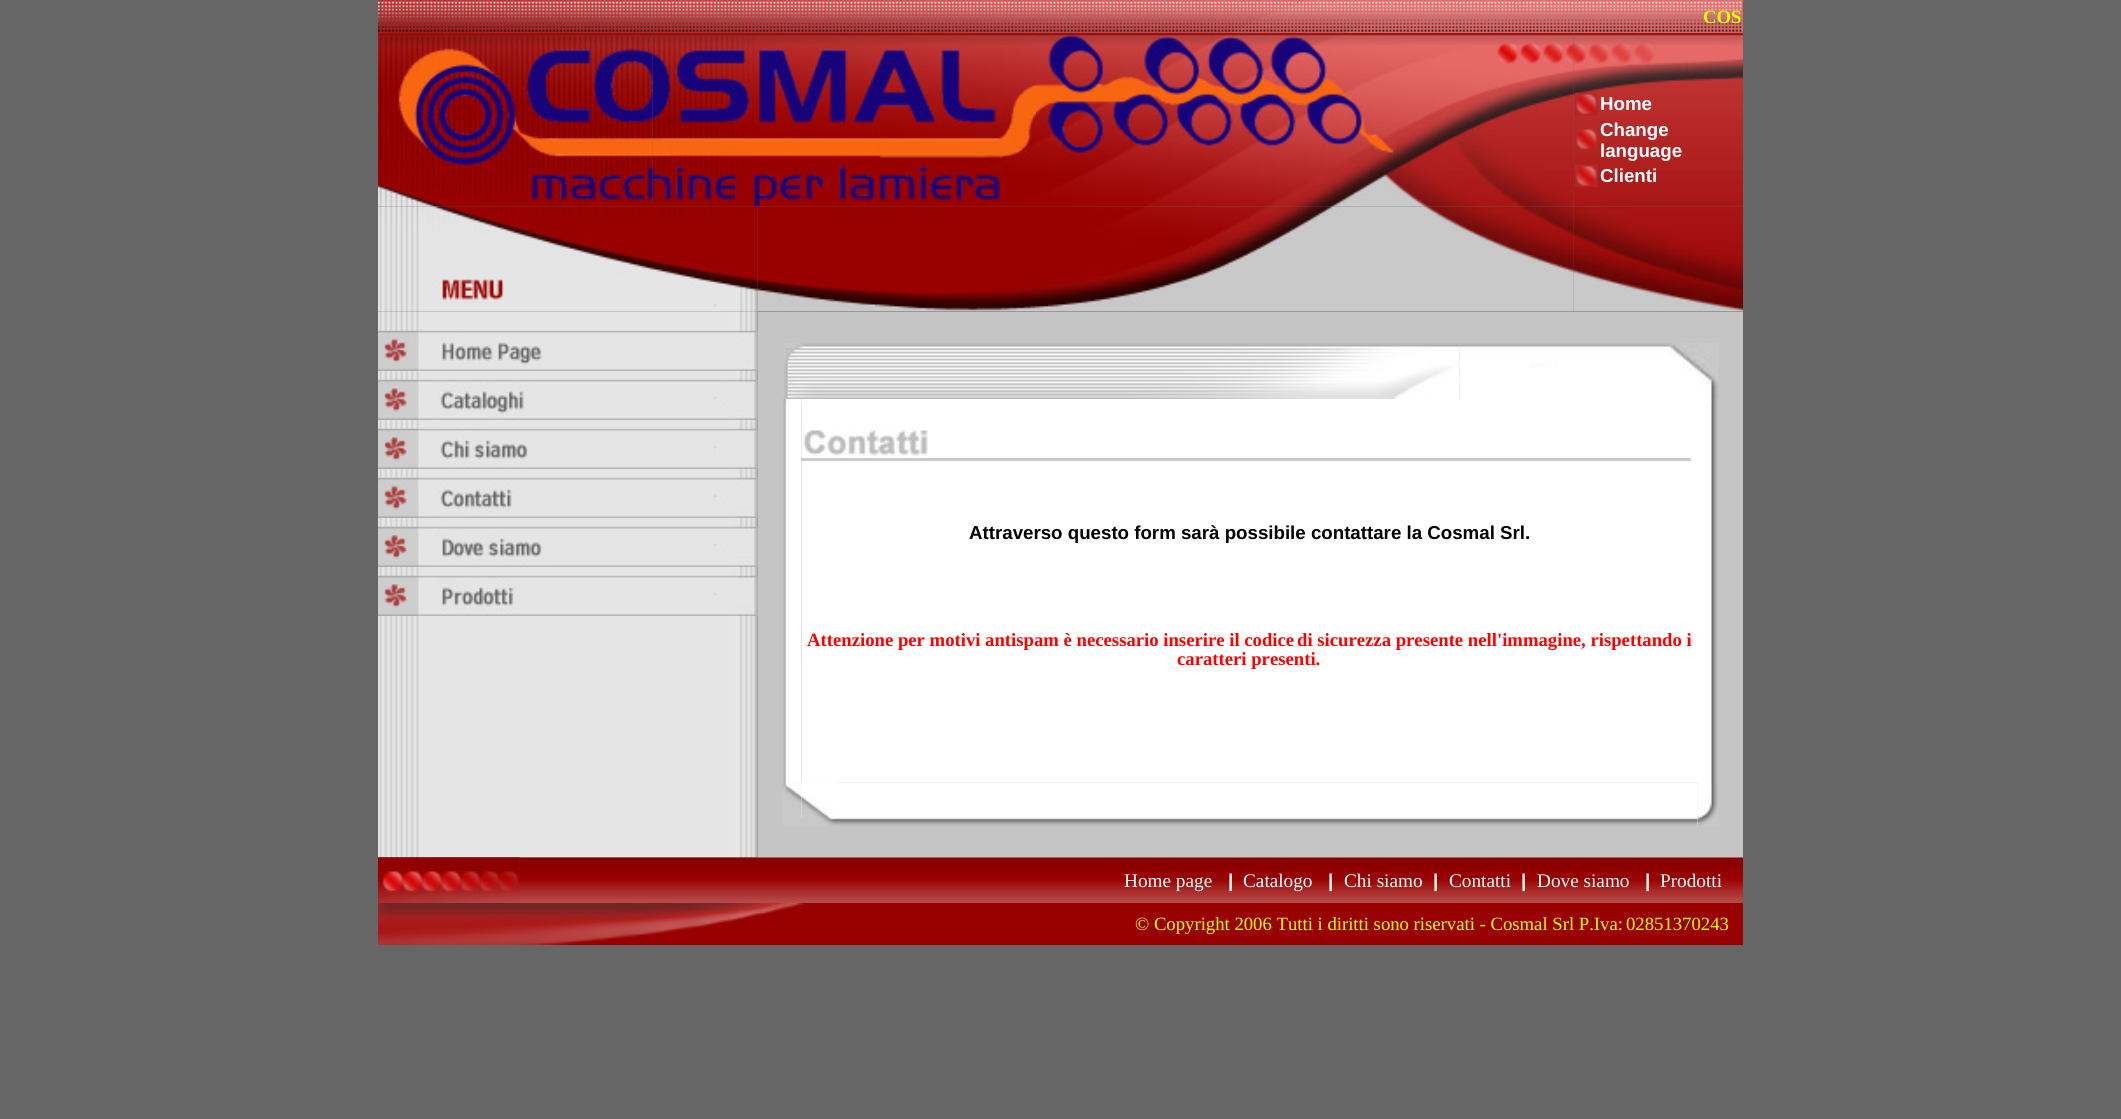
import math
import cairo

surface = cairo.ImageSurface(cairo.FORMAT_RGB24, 2121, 1119)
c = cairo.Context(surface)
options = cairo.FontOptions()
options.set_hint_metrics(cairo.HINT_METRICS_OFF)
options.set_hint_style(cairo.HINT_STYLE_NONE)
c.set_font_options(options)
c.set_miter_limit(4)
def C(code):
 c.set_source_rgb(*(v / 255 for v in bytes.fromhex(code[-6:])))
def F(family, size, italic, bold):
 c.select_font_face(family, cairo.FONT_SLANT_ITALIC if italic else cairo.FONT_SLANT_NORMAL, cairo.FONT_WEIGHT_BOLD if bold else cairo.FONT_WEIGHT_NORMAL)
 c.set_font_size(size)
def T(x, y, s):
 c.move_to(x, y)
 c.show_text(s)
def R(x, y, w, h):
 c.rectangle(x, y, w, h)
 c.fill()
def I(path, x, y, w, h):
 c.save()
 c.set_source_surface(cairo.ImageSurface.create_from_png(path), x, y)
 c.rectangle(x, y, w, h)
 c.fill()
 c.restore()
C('666666')
c.paint()
I('1.png',378,0,1365,34)
F('Liberation Serif',18.7,0,1)
C('ffff00')
T(1703,23,'COS')
I('2.png',378,33,275,174)
I('3.png',652,33,384,174)
I('5.png',1573,33,170,174)
I('4.png',1036,33,538,174)
I('6.png',1575,92,23,24)
F('Liberation Sans',18.7,0,1)
C('ffffff')
T(1600,110,'Home')
I('7.png',1576,129,21,21)
T(1600,136,'Change')
T(1600,157,'language')
I('8.png',1575,164,23,23)
T(1600,182,'Clienti')
I('13.png',378,311,380,547)
I('9.png',378,206,380,106)
I('10.png',757,206,279,106)
I('11.png',1036,206,538,106)
I('12.png',1573,206,170,106)
I('14.png',378,330,380,41)
I('15.png',378,379,380,41)
I('16.png',378,428,380,41)
I('17.png',378,477,380,41)
I('18.png',378,526,380,41)
I('19.png',378,575,380,41)
C('c5c5c5')
R(758,312,985,546)
I('20.png',784,343,676,56)
I('21.png',1459,343,260,56)
I('22.png',783,399,19,384)
I('23.png',782,399,20,5)
C('ffffff')
R(802,399,896,383)
I('24.png',801,430,127,28)
C('cccccc')
R(801,458,890,3)
C('000000')
T(969,539,'Attraverso questo form sarà possibile contattare la Cosmal Srl.')
F('Liberation Serif',18.7,0,1)
C('ff0000')
T(807,646,'Attenzione per motivi antispam è necessario inserire il codice')
T(1297,646,'di sicurezza presente nell\'immagine, rispettando i')
T(1177,665,'caratteri presenti.')
I('25.png',1697,399,21,384)
C('bebebe')
R(1711,399,1,5)
I('26.png',783,782,19,44)
I('28.png',801,782,897,44)
I('27.png',782,782,20,44)
I('29.png',801,782,35,44)
I('30.png',1697,782,21,44)
I('31.png',1697,782,21,44)
I('32.png',378,857,142,46)
I('34.png',519,857,1224,46)
I('33.png',378,857,142,46)
F('Liberation Serif',19.25,0,0)
C('ffffff')
T(1124,887,'Home page')
F('Liberation Sans',18.7,0,1)
T(1228,887,'|')
F('Liberation Serif',19.25,0,0)
T(1243,887,'Catalogo')
F('Liberation Sans',18.7,0,1)
T(1328,887,'|')
F('Liberation Serif',19.25,0,0)
T(1344,887,'Chi siamo')
F('Liberation Sans',18.7,0,1)
T(1433,887,'|')
F('Liberation Serif',19.25,0,0)
T(1449,887,'Contatti')
F('Liberation Sans',18.7,0,1)
T(1521,887,'|')
F('Liberation Serif',19.25,0,0)
T(1537,887,'Dove siamo')
F('Liberation Sans',18.7,0,1)
T(1645,887,'|')
F('Liberation Serif',19.25,0,0)
T(1660,887,'Prodotti')
I('35.png',378,903,427,42)
C('990100')
R(805,903,938,42)
F('Liberation Serif',18.7,0,0)
C('ffff00')
T(1135,930,'© Copyright 2006 Tutti i diritti sono riservati - Cosmal Srl P.Iva:')
T(1626,930,'02851370243')
surface.write_to_png('o.png')
